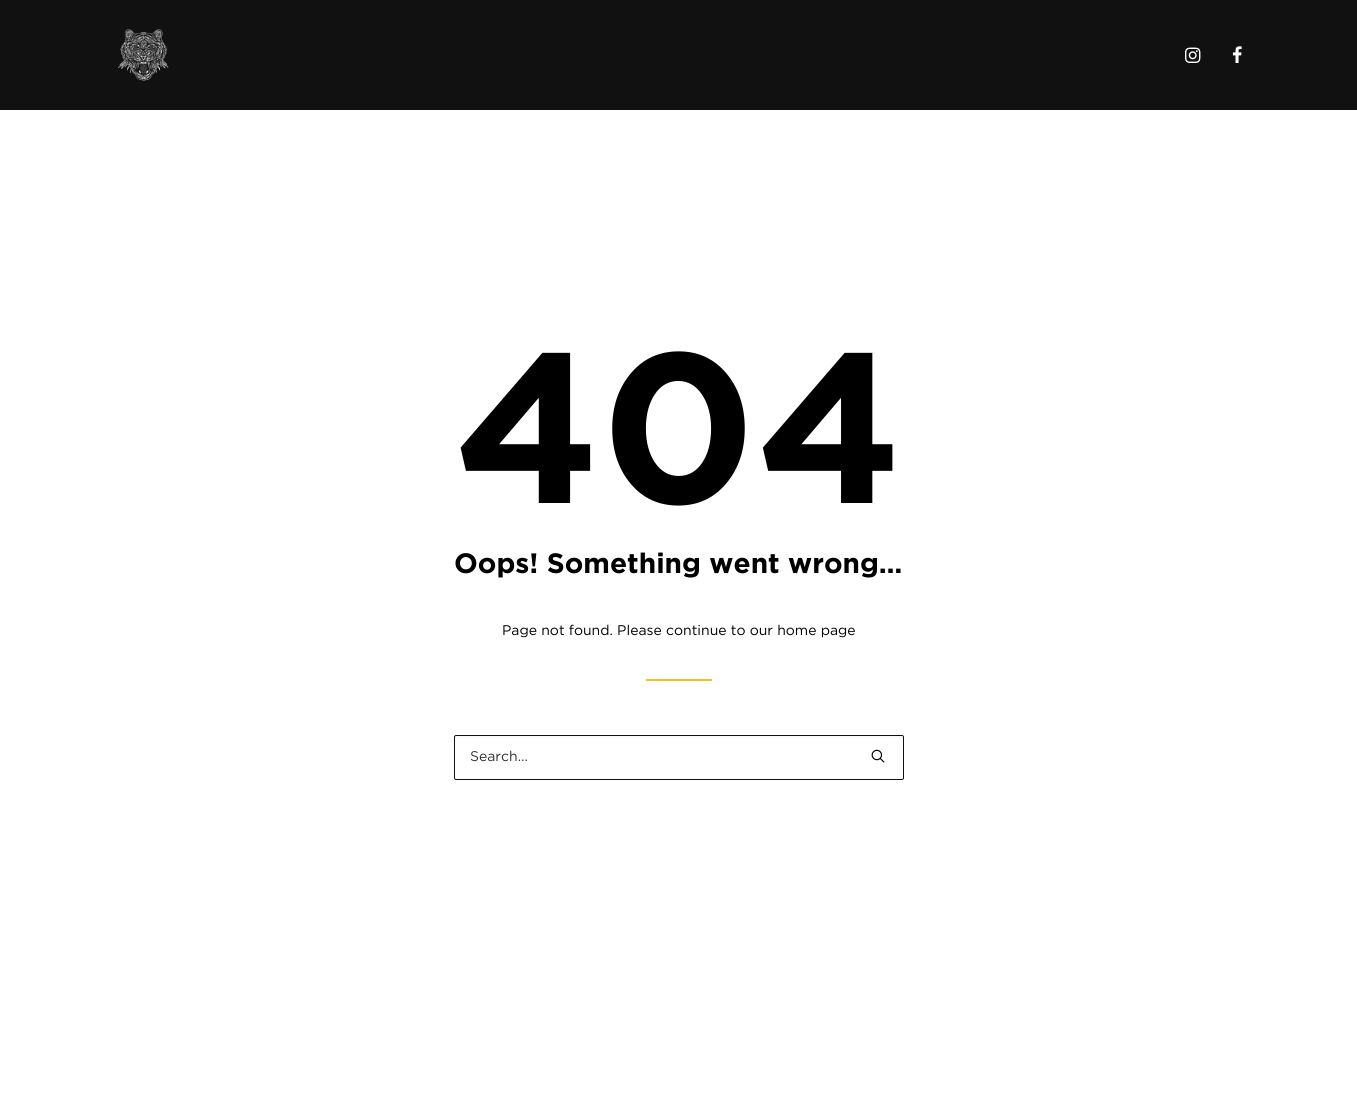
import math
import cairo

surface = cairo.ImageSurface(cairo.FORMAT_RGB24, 1357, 1114)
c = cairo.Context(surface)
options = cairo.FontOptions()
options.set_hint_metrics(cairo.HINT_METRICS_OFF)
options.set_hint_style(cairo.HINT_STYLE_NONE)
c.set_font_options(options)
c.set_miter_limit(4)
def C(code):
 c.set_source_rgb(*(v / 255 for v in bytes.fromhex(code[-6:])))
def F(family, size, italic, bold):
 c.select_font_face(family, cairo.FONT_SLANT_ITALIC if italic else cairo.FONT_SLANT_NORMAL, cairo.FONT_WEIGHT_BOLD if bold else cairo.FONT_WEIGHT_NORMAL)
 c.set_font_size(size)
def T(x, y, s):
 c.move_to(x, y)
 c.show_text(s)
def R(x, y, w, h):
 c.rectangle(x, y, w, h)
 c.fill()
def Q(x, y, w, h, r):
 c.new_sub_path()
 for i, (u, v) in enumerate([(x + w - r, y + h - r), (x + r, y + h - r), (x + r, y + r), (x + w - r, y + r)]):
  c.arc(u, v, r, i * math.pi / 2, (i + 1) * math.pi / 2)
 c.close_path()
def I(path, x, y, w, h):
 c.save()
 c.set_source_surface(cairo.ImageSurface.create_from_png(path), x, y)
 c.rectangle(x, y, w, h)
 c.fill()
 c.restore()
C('ffffff')
c.paint()
C('111111')
R(0,0,1357,110)
I('1.png',118,29,51,52)
I('2.png',1185,47,16,16)
I('3.png',1232,46,10,17)
F('Gotham',213,0,1)
C('000000')
T(454,503,'404')
F('Gotham',28,0,1)
T(454,573,'Oops! Something went wrong…')
F('Gotham',14,0,0)
T(502,635,'Page not found. Please continue to our home page')
C('f0c12d')
R(646,679,66,2)
C('f9f9f9')
c.new_path()
c.move_to(456,738)
c.line_to(902,738)
c.curve_to(903,738,903,738,903,739)
c.curve_to(903,738,903,736,902,736)
c.line_to(456,736)
c.line_to(455,736)
c.line_to(455,739)
c.curve_to(455,738,455,738,456,738)
c.close_path()
c.fill()
Q(454.5,735.5,449,44,1.5)
C('111111')
c.set_line_width(1)
c.stroke()
C('323232')
T(470,761,'Search…')
I('4.png',871,749,14,14)
surface.write_to_png('o.png')
